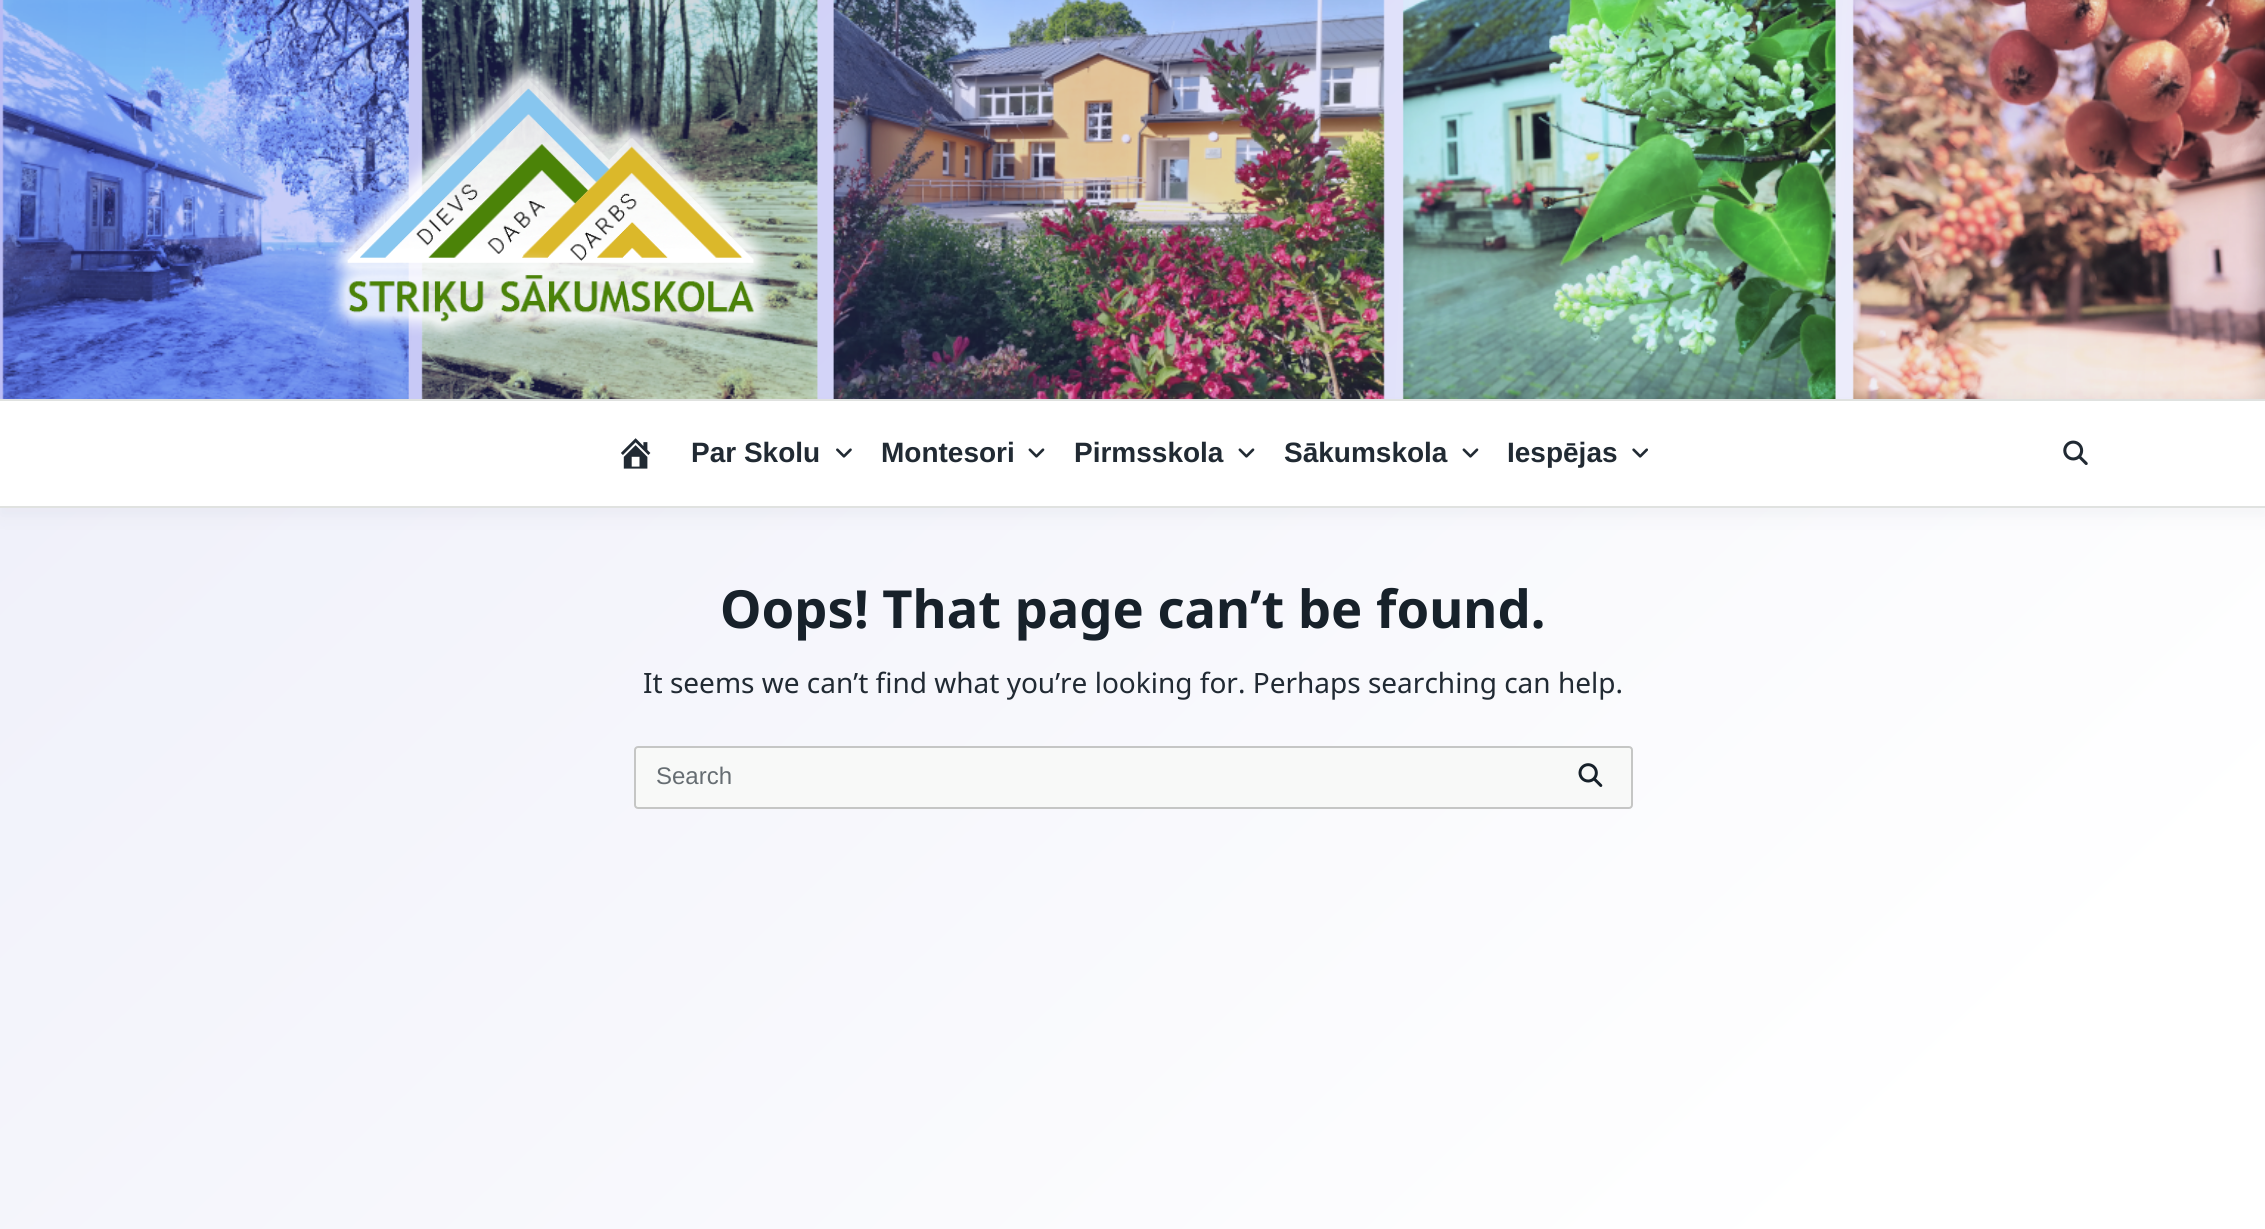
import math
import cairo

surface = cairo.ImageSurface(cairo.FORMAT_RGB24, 2265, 1229)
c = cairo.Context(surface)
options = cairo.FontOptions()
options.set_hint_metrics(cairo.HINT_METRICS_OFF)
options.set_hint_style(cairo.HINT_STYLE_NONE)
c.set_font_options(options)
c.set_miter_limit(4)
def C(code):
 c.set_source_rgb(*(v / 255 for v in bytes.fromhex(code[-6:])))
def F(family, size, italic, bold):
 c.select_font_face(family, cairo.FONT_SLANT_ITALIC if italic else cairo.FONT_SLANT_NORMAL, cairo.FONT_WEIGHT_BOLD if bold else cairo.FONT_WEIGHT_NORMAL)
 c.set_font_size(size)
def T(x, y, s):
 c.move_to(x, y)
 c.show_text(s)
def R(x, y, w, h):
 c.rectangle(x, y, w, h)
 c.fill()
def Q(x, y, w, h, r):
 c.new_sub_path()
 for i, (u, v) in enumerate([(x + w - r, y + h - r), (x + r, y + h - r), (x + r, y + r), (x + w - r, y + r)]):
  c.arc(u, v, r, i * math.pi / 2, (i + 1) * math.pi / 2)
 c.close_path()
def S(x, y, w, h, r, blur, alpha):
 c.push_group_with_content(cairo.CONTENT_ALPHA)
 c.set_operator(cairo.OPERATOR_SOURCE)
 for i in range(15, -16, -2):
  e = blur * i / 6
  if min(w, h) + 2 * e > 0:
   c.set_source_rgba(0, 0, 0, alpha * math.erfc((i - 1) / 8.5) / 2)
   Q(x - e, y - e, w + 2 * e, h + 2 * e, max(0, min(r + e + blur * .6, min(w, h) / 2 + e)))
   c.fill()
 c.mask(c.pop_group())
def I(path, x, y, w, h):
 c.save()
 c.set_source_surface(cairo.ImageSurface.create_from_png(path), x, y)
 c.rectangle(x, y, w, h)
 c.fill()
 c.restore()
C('ffffff')
c.paint()
gradient = cairo.LinearGradient(2003,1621,263,-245)
gradient.add_color_stop_rgba(0,1,1,1,1)
gradient.add_color_stop_rgba(.16,1,1,1,1)
gradient.add_color_stop_rgba(1,0.929,0.933,0.976,1)
c.set_source(gradient)
R(0,0,2265,1229)
C('2c3e50')
S(0,410,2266,106,0,9,.05)
I('1.png',2,0,2263,399)
C('e0e2e0')
R(0,399,2265,2)
gradient = cairo.LinearGradient(-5.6,160,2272,239)
gradient.add_color_stop_rgba(.03,0.275,0.286,0.918,.3)
gradient.add_color_stop_rgba(1,0.588,0.584,0.941,.08)
c.set_source(gradient)
R(0,0,2265,399)
I('2.png',326,58,450,284)
C('ffffff')
R(0,401,2265,105)
C('e0e2e0')
R(0,506,2265,2)
I('3.png',621,438,30,31)
F('Liberation Sans',28,0,1)
C('212a33')
T(691,462,'Par Skolu')
I('4.png',836,448,16,10)
T(881,462,'Montesori')
I('5.png',1028,448,17,10)
T(1074,462,'Pirmsskola')
I('5.png',1238,448,17,10)
T(1284,462,'Sākumskola')
I('5.png',1462,448,17,10)
T(1507,462,'Iespējas')
I('6.png',1632,448,16,10)
I('7.png',2063,440,25,25)
F('Noto Sans',52.5,0,1)
C('17212a')
T(720,628,'Oops! That page can’t be found.')
F('Noto Sans',28,0,0)
C('212a33')
T(643,693,'It seems we can’t find what you’re looking for. Perhaps searching can help.')
C('f8f9f8')
Q(635,747,997,61,3)
c.fill_preserve()
C('c5c6c5')
c.stroke()
F('Liberation Sans',24,0,0)
C('666d72')
T(656,784,'Search')
I('8.png',1578,763,25,24)
surface.write_to_png('o.png')
